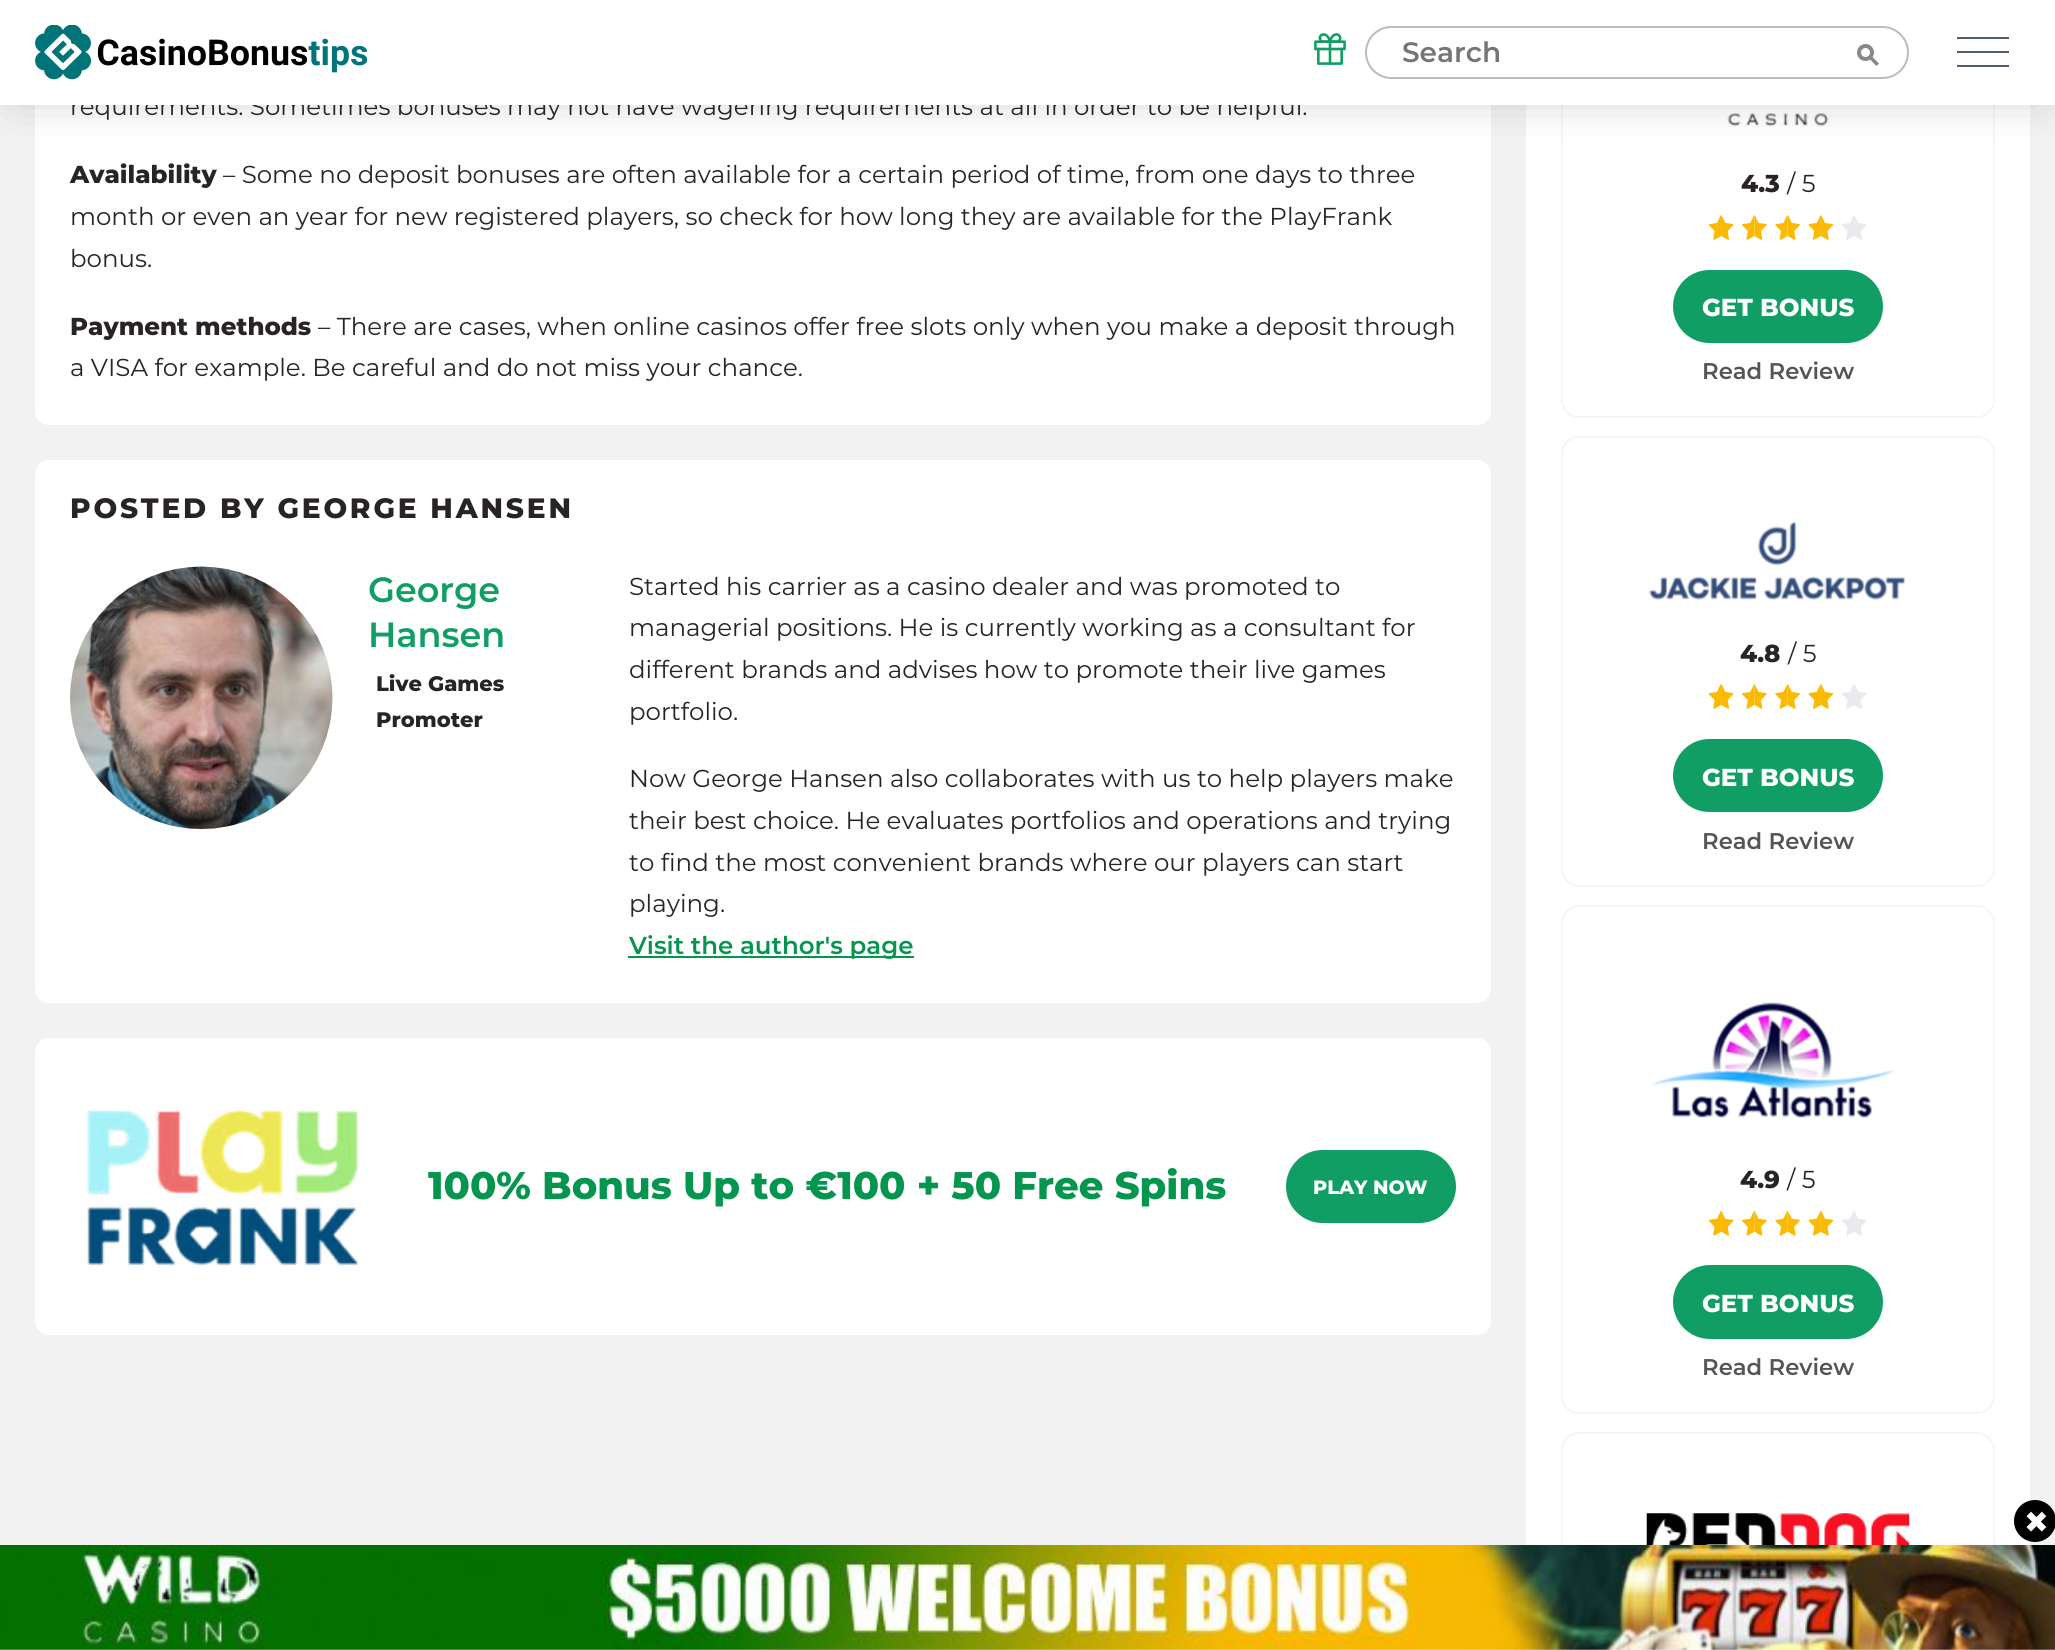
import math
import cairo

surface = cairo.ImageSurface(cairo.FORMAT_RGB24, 2055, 1650)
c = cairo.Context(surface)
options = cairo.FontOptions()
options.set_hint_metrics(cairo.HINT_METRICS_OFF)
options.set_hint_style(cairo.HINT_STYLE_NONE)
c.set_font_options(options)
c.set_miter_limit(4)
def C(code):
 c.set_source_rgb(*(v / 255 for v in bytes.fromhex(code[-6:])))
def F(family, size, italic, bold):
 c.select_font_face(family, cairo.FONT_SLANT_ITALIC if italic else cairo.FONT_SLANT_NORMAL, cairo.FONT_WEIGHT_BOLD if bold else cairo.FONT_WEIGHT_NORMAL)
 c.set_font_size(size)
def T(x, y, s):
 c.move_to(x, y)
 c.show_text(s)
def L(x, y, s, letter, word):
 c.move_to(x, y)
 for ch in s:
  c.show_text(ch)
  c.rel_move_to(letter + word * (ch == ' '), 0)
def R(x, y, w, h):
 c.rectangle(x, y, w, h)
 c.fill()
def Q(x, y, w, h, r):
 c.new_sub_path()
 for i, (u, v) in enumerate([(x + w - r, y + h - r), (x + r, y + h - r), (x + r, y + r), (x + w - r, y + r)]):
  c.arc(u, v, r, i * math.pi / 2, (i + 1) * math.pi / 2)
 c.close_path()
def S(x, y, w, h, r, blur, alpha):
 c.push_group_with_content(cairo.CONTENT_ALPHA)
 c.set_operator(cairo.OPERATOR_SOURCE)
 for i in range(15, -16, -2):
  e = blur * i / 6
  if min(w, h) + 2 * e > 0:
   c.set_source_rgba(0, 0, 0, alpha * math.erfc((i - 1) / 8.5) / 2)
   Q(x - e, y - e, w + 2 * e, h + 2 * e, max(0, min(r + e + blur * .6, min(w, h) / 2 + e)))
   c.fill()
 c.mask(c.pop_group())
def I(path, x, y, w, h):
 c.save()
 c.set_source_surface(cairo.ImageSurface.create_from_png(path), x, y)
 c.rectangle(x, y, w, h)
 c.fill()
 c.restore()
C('f2f2f2')
c.paint()
C('ffffff')
Q(35,-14,1456,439,14)
c.fill()
R(1526,105,504,1545)
Q(1562,-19,432,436,17)
C('f4f5f7')
c.stroke()
I('5.png',1727,113,102,14)
C('000000')
S(18,18,2021,70,0,26,.3)
F('Montserrat',24.5,0,0)
C('282423')
T(70,115,'requirements. Sometimes bonuses may not have wagering requirements at all in order to be helpful.')
C('ffffff')
R(0,0,2055,105)
I('1.png',35,25,333,55)
I('2.png',1314,33,32,32)
Q(1366,27,542,51,25.5)
C('b9bbc1')
c.stroke()
F('Montserrat SemiBold',28,0,0)
C('757575')
T(1402,62,'Search')
c.new_path()
c.arc(1865.5,52.5,6.5,0,2 * math.pi)
C('888888')
c.set_line_width(4)
c.stroke()
c.new_path()
c.move_to(1872,56.5)
c.line_to(1879,63.5)
c.line_to(1876.5,66)
c.line_to(1869.5,59)
c.close_path()
c.fill()
C('4e5f72')
R(1957,37,52,2)
R(1957,51,52,2)
R(1957,65,52,2)
F('Montserrat ExtraBold',24.5,0,0)
C('282423')
T(70,183,'Availability')
F('Montserrat',24.5,0,0)
T(223,183,'– Some no deposit bonuses are often available for a certain period of time, from one days to three')
T(70,225,'month or even an year for new registered players, so check for how long they are available for the PlayFrank')
T(70,267,'bonus.')
F('Montserrat ExtraBold',24.5,0,0)
T(70,335,'Payment methods')
F('Montserrat',24.5,0,0)
T(318,335,'– There are cases, when online casinos offer free slots only when you make a deposit through')
T(70,376,'a VISA for example. Be careful and do not miss your chance.')
C('ffffff')
Q(35,460,1456,543,14)
c.fill()
F('Montserrat ExtraBold',28,0,0)
C('282423')
L(70,518,'POSTED BY GEORGE HANSEN',2.8,0)
I('3.png',70,566,263,263)
F('Montserrat SemiBold',35,0,0)
C('119e64')
T(368,602,'George')
T(368,647,'Hansen')
F('Montserrat ExtraBold',21,0,0)
C('282423')
T(376,691,'Live Games')
T(376,727,'Promoter')
F('Montserrat',24.5,0,0)
T(629,595,'Started his carrier as a casino dealer and was promoted to')
T(629,636,'managerial positions. He is currently working as a consultant for')
T(629,678,'different brands and advises how to promote their live games')
T(629,720,'portfolio.')
T(629,787,'Now George Hansen also collaborates with us to help players make')
T(629,829,'their best choice. He evaluates portfolios and operations and trying')
T(629,871,'to find the most convenient brands where our players can start')
T(629,912,'playing.')
C('04954e')
R(628,956,286,2)
F('Montserrat SemiBold',24.5,0,0)
T(629,954,'Visit the author\'s page')
C('ffffff')
Q(35,1038,1456,297,14)
c.fill()
I('4.png',86,1110,274,158)
F('Montserrat ExtraBold',38.5,0,0)
C('04954e')
T(428,1199,'100% Bonus Up to €100 + 50 Free Spins')
C('119e64')
Q(1287,1151,168,71,35.5)
c.fill_preserve()
c.set_line_width(2)
c.stroke()
F('Montserrat ExtraBold',19.25,0,0)
C('ffffff')
T(1313,1194,'PLAY NOW')
F('Montserrat ExtraBold',24.5,0,0)
C('282423')
T(1741,192,'4.3')
F('Montserrat',24.5,0,0)
T(1787,192,'/ 5')
I('6.png',1708,215,26,25)
I('7.png',1742,215,25,25)
I('8.png',1775,215,25,25)
I('9.png',1808,215,26,25)
I('10.png',1842,215,25,25)
C('119e64')
Q(1674,271,208,71,35.5)
c.fill_preserve()
c.stroke()
F('Montserrat ExtraBold',24.5,0,0)
C('ffffff')
T(1702,316,'GET BONUS')
F('Montserrat SemiBold',22.75,0,0)
C('555555')
T(1702,379,'Read Review')
Q(1562,437,432,449,17)
C('f4f5f7')
c.stroke()
I('11.png',1648,521,258,79)
F('Montserrat ExtraBold',24.5,0,0)
C('282423')
T(1740,662,'4.8')
F('Montserrat',24.5,0,0)
T(1788,662,'/ 5')
I('6.png',1708,684,26,25)
I('7.png',1742,684,25,25)
I('8.png',1775,684,25,25)
I('9.png',1808,684,26,25)
I('10.png',1842,684,25,25)
C('119e64')
Q(1674,740,208,71,35.5)
c.fill_preserve()
c.stroke()
F('Montserrat ExtraBold',24.5,0,0)
C('ffffff')
T(1702,786,'GET BONUS')
F('Montserrat SemiBold',22.75,0,0)
C('555555')
T(1702,849,'Read Review')
Q(1562,906,432,507,17)
C('f4f5f7')
c.stroke()
I('12.png',1652,1002,243,116)
F('Montserrat ExtraBold',24.5,0,0)
C('282423')
T(1740,1188,'4.9')
F('Montserrat',24.5,0,0)
T(1787,1188,'/ 5')
I('13.png',1708,1211,26,25)
I('14.png',1742,1211,25,25)
I('15.png',1775,1211,25,25)
I('16.png',1808,1211,26,25)
I('17.png',1842,1211,25,25)
C('119e64')
Q(1674,1266,208,72,36)
c.fill_preserve()
c.stroke()
F('Montserrat ExtraBold',24.5,0,0)
C('ffffff')
T(1702,1312,'GET BONUS')
F('Montserrat SemiBold',22.75,0,0)
C('555555')
T(1702,1375,'Read Review')
Q(1562,1433,432,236,17)
C('f4f5f7')
c.stroke()
I('18.png',1646,1513,264,32)
C('000000')
c.arc(2035,1521,21,0,2 * math.pi)
c.fill()
F('Montserrat ExtraBold',44,0,0)
C('ffffff')
T(2023,1537,'×')
I('19.png',0,1545,2055,105)
surface.write_to_png('o.png')
